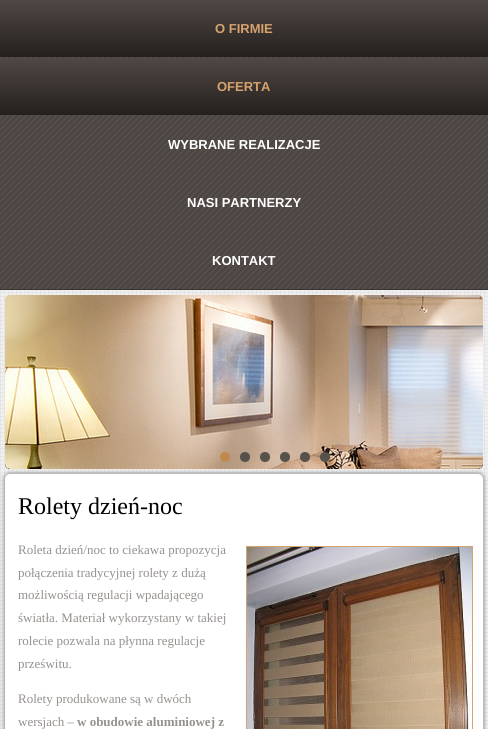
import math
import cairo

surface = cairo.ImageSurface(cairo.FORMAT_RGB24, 488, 729)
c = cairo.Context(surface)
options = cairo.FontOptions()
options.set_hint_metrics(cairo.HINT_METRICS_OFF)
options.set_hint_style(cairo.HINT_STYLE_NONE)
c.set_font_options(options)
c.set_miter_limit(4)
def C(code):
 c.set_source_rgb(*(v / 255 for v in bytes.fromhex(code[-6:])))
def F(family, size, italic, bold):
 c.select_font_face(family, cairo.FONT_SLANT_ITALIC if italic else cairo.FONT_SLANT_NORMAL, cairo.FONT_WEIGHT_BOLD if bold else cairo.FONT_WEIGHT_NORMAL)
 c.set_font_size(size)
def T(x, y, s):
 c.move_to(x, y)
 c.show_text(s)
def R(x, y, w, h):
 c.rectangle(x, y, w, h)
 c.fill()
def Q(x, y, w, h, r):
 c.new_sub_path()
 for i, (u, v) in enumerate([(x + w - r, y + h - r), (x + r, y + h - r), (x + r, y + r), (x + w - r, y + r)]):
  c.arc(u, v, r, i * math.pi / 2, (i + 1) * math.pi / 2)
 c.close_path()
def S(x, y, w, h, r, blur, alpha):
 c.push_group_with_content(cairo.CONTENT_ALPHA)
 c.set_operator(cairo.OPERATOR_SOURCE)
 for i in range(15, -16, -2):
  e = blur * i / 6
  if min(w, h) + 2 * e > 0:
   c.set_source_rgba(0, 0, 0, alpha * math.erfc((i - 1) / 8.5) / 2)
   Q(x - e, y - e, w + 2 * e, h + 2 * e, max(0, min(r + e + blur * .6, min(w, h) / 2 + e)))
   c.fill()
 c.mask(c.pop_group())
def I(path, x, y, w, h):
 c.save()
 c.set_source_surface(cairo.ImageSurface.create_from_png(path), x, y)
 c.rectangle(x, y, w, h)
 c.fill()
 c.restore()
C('eeeeee')
c.paint()
I('1.png',0,290,488,439)
C('504945')
R(0,57,488,232)
I('2.png',0,57,488,232)
C('393431')
R(0,289,488,1)
gradient = cairo.LinearGradient(244,0,244,57)
gradient.add_color_stop_rgba(0,0.314,0.282,0.267,1)
gradient.add_color_stop_rgba(1,0.141,0.125,0.118,1)
c.set_source(gradient)
R(0,0,488,57)
F('Liberation Sans',13,0,1)
C('d6a26d')
T(215,33,'O FIRMIE')
gradient = cairo.LinearGradient(244,58,244,115)
gradient.add_color_stop_rgba(0,0.314,0.282,0.267,1)
gradient.add_color_stop_rgba(1,0.141,0.125,0.118,1)
c.set_source(gradient)
R(0,58,488,57)
C('d6a26d')
T(217,91,'OFERTA')
C('ffffff')
T(168,149,'WYBRANE REALIZACJE')
T(187,207,'NASI PARTNERZY')
T(212,265,'KONTAKT')
I('3.png',5,295,478,174)
I('4.png',5,295,478,174)
C('c18950')
c.arc(225,457,5,0,2 * math.pi)
c.fill()
C('57514b')
c.arc(245,457,5,0,2 * math.pi)
c.fill()
c.arc(265,457,5,0,2 * math.pi)
c.fill()
c.arc(285,457,5,0,2 * math.pi)
c.fill()
c.arc(305,457,5,0,2 * math.pi)
c.fill()
c.arc(325,457,5,0,2 * math.pi)
c.fill()
C('000000')
S(3,472,482,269,7,1.5,.25)
C('ffffff')
Q(5,474,478,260,5)
c.fill()
F('Liberation Serif',24,0,0)
C('000000')
T(18,514,'Rolety dzień-noc')
F('Liberation Serif',13,0,0)
C('95918e')
T(18,554,'Roleta dzień/noc to ciekawa propozycja')
c.rectangle(246.5,546.5,226,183)
C('d6a26d')
c.set_line_width(1)
c.stroke()
I('5.png',247,547,225,182)
C('95918e')
T(18,577,'połączenia tradycyjnej rolety z dużą')
T(18,599,'możliwością regulacji wpadającego')
T(18,622,'światła. Materiał wykorzystany w takiej')
T(18,645,'rolecie pozwala na płynna regulacje')
T(18,668,'prześwitu.')
T(18,703,'Rolety produkowane są w dwóch')
T(18,726,'wersjach –')
F('Liberation Serif',13,0,1)
T(77,726,'w obudowie aluminiowej z')
surface.write_to_png('o.png')
